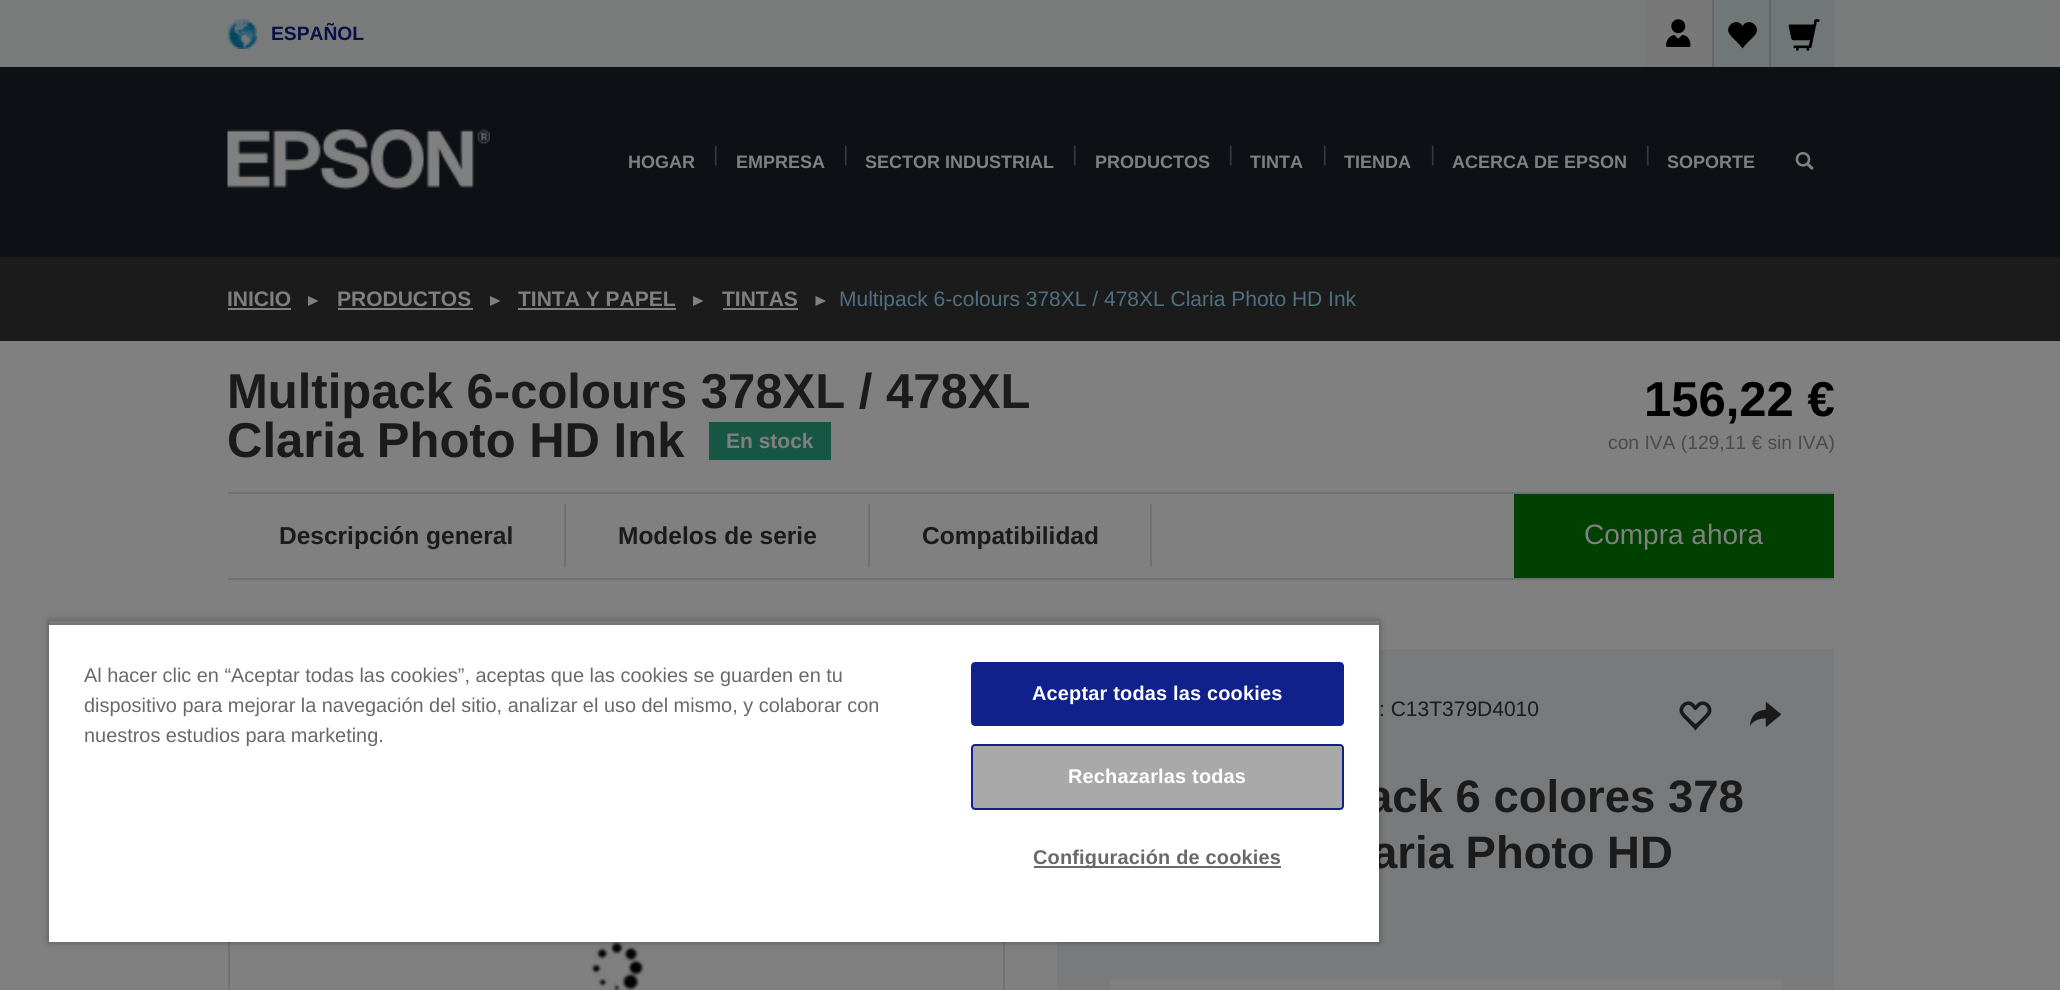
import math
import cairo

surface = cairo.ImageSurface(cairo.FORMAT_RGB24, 2060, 990)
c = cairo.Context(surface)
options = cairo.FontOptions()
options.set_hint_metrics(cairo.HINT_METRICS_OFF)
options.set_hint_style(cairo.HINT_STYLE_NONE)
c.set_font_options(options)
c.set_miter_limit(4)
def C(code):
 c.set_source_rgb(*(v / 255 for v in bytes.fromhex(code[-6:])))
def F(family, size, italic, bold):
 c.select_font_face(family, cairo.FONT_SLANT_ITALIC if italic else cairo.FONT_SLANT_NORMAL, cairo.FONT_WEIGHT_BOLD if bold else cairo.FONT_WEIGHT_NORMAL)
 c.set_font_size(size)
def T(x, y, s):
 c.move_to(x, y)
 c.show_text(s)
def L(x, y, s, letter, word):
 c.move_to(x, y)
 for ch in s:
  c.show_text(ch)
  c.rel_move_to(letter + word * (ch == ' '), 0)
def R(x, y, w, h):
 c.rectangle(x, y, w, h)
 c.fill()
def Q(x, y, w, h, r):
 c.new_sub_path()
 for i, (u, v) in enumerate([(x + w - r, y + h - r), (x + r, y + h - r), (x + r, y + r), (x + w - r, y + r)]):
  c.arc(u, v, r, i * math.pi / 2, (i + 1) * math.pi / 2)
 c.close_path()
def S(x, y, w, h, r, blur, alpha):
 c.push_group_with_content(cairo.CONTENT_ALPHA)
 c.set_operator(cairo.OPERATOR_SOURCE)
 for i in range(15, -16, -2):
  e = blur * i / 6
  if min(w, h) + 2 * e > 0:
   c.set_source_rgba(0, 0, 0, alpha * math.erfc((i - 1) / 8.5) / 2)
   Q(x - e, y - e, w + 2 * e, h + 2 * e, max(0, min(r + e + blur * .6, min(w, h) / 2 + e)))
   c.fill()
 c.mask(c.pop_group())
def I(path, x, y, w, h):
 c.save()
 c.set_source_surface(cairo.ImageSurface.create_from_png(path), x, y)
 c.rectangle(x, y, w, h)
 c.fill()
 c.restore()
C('808080')
c.paint()
C('797b7b')
R(0,0,2060,67)
I('1.png',227,19,31,30)
F('Liberation Sans',19.25,0,1)
C('081146')
T(271,40,'ESPAÑOL')
C('787878')
R(1645,0,67,67)
I('2.png',1666,19,25,28)
C('717677')
R(1714,0,55,67)
C('666666')
R(1712,0,2,67)
I('3.png',1728,22,29,27)
R(1769,0,2,67)
C('717677')
R(1771,0,63,67)
I('4.png',1788,19,32,32)
C('0d1116')
R(0,67,2060,190)
I('5.png',227,129,263,61)
F('Liberation Sans',18,0,1)
C('808080')
T(628,168,'HOGAR')
F('Liberation Sans',21,0,0)
C('383838')
T(713,161,'|')
F('Liberation Sans',18,0,1)
C('808080')
T(736,168,'EMPRESA')
F('Liberation Sans',21,0,0)
C('383838')
T(843,161,'|')
F('Liberation Sans',18,0,1)
C('808080')
T(865,168,'SECTOR INDUSTRIAL')
F('Liberation Sans',21,0,0)
C('383838')
T(1072,161,'|')
F('Liberation Sans',18,0,1)
C('808080')
T(1095,168,'PRODUCTOS')
F('Liberation Sans',21,0,0)
C('383838')
T(1228,161,'|')
F('Liberation Sans',18,0,1)
C('808080')
T(1250,168,'TINTA')
F('Liberation Sans',21,0,0)
C('383838')
T(1322,161,'|')
F('Liberation Sans',18,0,1)
C('808080')
T(1344,168,'TIENDA')
F('Liberation Sans',21,0,0)
C('383838')
T(1430,161,'|')
F('Liberation Sans',18,0,1)
C('808080')
T(1452,168,'ACERCA DE EPSON')
F('Liberation Sans',21,0,0)
C('383838')
T(1645,161,'|')
F('Liberation Sans',18,0,1)
C('808080')
T(1667,168,'SOPORTE')
I('6.png',1795,152,19,18)
C('1b1b1b')
R(0,257,2060,84)
F('Liberation Sans',21,0,1)
C('808080')
T(227,306,'INICIO')
R(228,308,63,2)
c.new_path()
c.move_to(308,306)
c.line_to(308,296)
c.line_to(318.5,301)
c.close_path()
c.fill()
T(337,306,'PRODUCTOS')
R(338,308,135,2)
c.new_path()
c.move_to(490,306)
c.line_to(490,296)
c.line_to(500.5,301)
c.close_path()
c.fill()
T(518,306,'TINTA Y PAPEL')
R(518,308,158,2)
c.new_path()
c.move_to(693,306)
c.line_to(693,296)
c.line_to(703.5,301)
c.close_path()
c.fill()
T(722,306,'TINTAS')
R(723,308,75,2)
c.new_path()
c.move_to(815.5,306)
c.line_to(815.5,296)
c.line_to(826,301)
c.close_path()
c.fill()
F('Liberation Sans',21,0,0)
C('4f7080')
T(839,306,'Multipack 6-colours 378XL / 478XL Claria Photo HD Ink')
F('Liberation Sans',49,0,1)
C('1b1b1b')
T(227,408,'Multipack 6-colours 378XL / 478XL')
T(227,457,'Claria Photo HD Ink')
C('175642')
R(709,422,122,38)
F('Liberation Sans',21,0,1)
C('808080')
T(726,448,'En stock')
F('Liberation Sans',49,0,1)
C('000000')
T(1644,416,'156,22 €')
F('Liberation Sans',19.25,0,0)
C('484a4e')
T(1608,449,'con IVA (129,11 € sin IVA)')
C('6d7276')
R(228,492,1606,2)
R(228,578,1606,2)
F('Liberation Sans',24.5,0,1)
C('1b1b1b')
T(279,544,'Descripción general')
C('6d7276')
R(564,504,2,63)
C('1b1b1b')
T(618,544,'Modelos de serie')
C('6d7276')
R(868,504,2,63)
C('1b1b1b')
T(922,544,'Compatibilidad')
C('6d7276')
R(1150,504,2,63)
C('004000')
R(1514,494,320,84)
F('Liberation Sans',28,0,0)
C('808080')
T(1584,544,'Compra ahora')
c.rectangle(229,650,775,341)
C('6d7276')
c.stroke()
I('7.png',590,942,55,48)
C('797a7b')
R(1057,649,777,341)
F('Liberation Sans',21,0,0)
C('1b1b1b')
T(1379,716,': C13T379D4010')
I('8.png',1679,701,33,30)
I('9.png',1750,702,31,25)
F('Liberation Sans',45.5,0,1)
T(1367,812,'ack 6 colores 378')
T(1372,868,'aria Photo HD')
C('808080')
R(1110,980,672,10)
c.save()
c.set_fill_rule(cairo.FILL_RULE_EVEN_ODD)
c.new_path()
c.move_to(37,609)
c.line_to(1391,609)
c.line_to(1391,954)
c.line_to(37,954)
c.close_path()
c.move_to(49,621)
c.line_to(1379,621)
c.line_to(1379,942)
c.line_to(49,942)
c.close_path()
c.clip()
C('000000')
S(49,621,1330,321,0,3.5,.35)
c.restore()
c.save()
c.rectangle(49,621,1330,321)
c.clip()
C('000000')
S(49,625,1330,317,0,3.5,.2)
c.restore()
C('ffffff')
R(49,625,1330,317)
F('Liberation Sans',19.9,0,0)
C('696969')
T(84,682,'Al hacer clic en “Aceptar todas las cookies”, aceptas que las cookies se guarden en tu')
T(84,712,'dispositivo para mejorar la navegación del sitio, analizar el uso del mismo, y colaborar con')
T(84,742,'nuestros estudios para marketing.')
C('10218b')
Q(972,663,371,62,3)
c.fill_preserve()
c.stroke()
F('Liberation Sans',19.9,0,1)
C('ffffff')
L(1032,700,'Aceptar todas las cookies',.2,0)
C('a9a9a9')
Q(972,745,371,64,3)
c.fill_preserve()
C('10218b')
c.stroke()
C('ffffff')
L(1068,783,'Rechazarlas todas',.2,0)
C('696969')
R(1034,866,247,2)
L(1033,864,'Configuración de cookies',.2,0)
surface.write_to_png('o.png')
